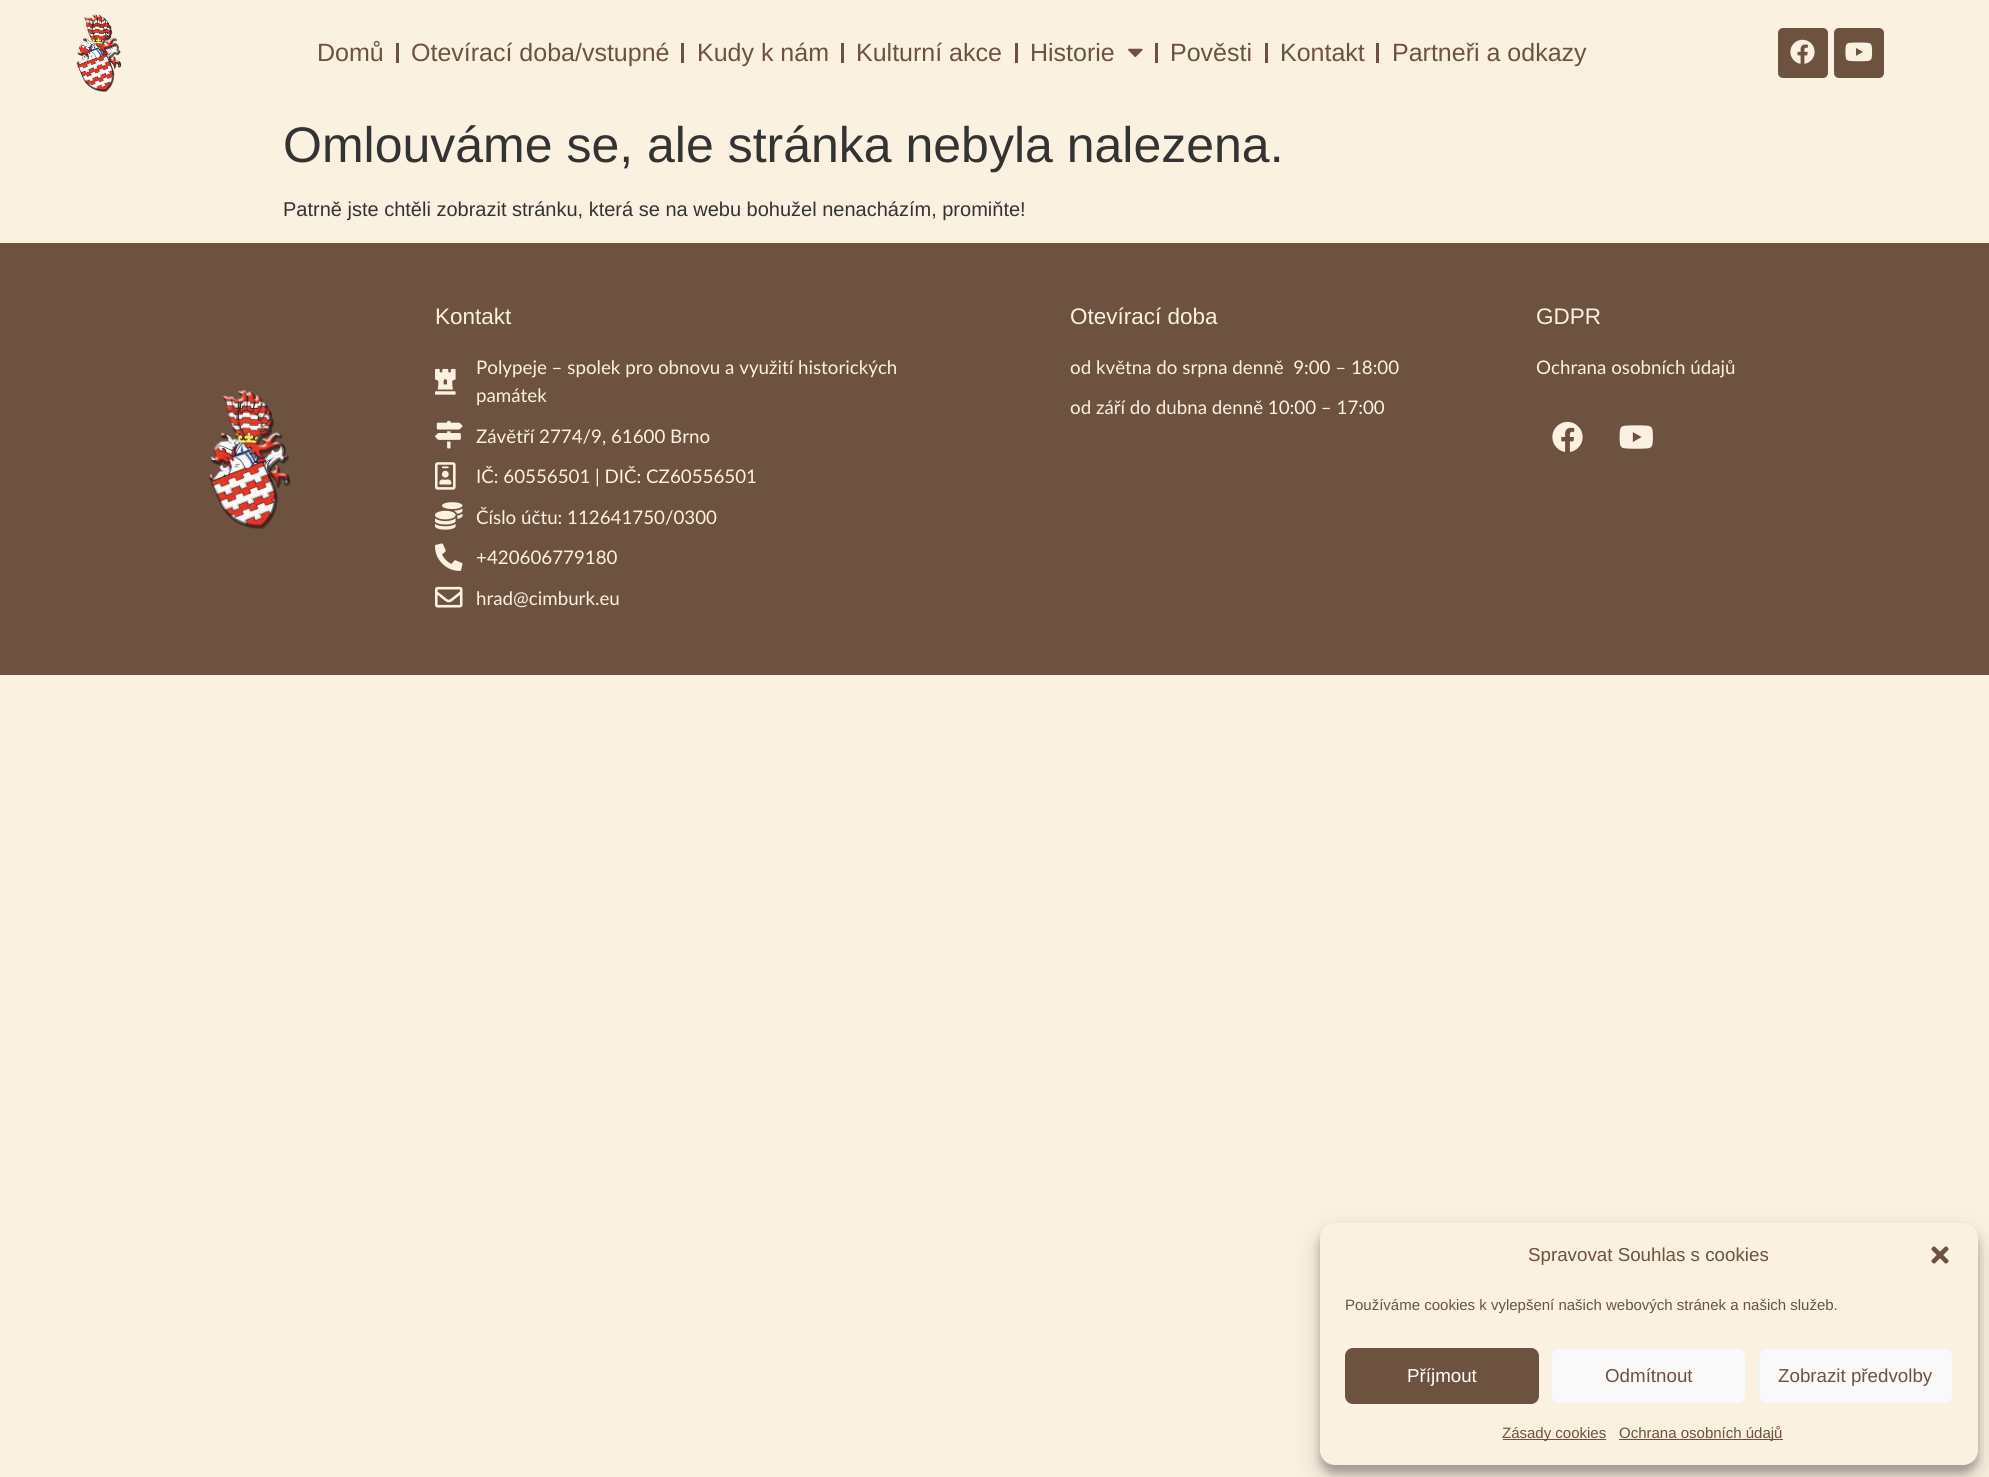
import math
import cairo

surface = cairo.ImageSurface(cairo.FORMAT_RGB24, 1989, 1477)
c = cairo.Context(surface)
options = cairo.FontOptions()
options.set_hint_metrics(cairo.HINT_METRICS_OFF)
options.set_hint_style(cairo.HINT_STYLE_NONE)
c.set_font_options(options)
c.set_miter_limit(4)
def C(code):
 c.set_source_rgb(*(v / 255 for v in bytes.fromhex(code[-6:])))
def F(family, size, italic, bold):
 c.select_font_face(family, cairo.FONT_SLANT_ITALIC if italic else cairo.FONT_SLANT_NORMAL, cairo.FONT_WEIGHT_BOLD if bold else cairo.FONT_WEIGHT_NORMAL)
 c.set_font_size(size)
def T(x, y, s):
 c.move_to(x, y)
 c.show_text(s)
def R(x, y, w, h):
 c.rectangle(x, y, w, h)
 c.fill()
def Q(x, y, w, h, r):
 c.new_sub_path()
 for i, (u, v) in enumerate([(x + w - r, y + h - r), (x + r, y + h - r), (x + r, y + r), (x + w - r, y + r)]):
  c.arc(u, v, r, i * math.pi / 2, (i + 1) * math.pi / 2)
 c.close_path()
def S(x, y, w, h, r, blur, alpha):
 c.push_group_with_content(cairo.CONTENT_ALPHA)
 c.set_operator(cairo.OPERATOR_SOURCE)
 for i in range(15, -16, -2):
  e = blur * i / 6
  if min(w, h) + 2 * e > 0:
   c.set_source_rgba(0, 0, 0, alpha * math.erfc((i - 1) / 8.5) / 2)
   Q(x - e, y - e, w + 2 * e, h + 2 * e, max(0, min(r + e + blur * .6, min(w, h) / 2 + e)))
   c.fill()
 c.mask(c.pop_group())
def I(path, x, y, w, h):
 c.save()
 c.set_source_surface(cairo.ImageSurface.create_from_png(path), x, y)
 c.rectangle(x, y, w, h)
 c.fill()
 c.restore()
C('faf1e0')
c.paint()
I('1.png',76,14,46,78)
F('Liberation Sans',25,0,0)
C('6e5240')
T(317,61,'Domů')
R(396,43,3,20)
T(411,61,'Otevírací doba/vstupné')
R(681,43,3,20)
T(697,61,'Kudy k nám')
R(841,43,3,20)
T(856,61,'Kulturní akce')
R(1015,43,3,20)
T(1030,61,'Historie')
I('2.png',1128,48,15,9)
R(1155,43,3,20)
T(1170,61,'Pověsti')
R(1265,43,3,20)
T(1280,61,'Kontakt')
R(1376,43,3,20)
T(1392,61,'Partneři a odkazy')
Q(1778,28,50,50,5)
c.fill()
I('3.png',1790,39,25,25)
Q(1834,28,50,50,5)
c.fill()
I('4.png',1845,42,28,20)
F('Liberation Sans',50,0,0)
C('333333')
T(283,162,'Omlouváme se, ale stránka nebyla nalezena.')
F('Liberation Sans',20,0,0)
T(283,216,'Patrně jste chtěli zobrazit stránku, která se na webu bohužel nenacházím, promiňte!')
C('6e5240')
R(0,243,1989,432)
F('Liberation Sans',22.5,0,0)
C('faf1e0')
T(435,324,'Kontakt')
I('5.png',435,368,21,27)
F('Lato',18.75,0,0)
T(476,374,'Polypeje – spolek pro obnovu a využití historických')
T(476,402,'památek')
I('6.png',435,420,28,29)
T(476,443,'Závětří 2774/9, 61600 Brno')
I('7.png',435,462,21,28)
T(476,483,'IČ: 60556501 | DIČ: CZ60556501')
I('8.png',435,502,28,28)
T(476,524,'Číslo účtu: 112641750/0300')
I('9.png',435,543,28,28)
T(476,564,'+420606779180')
I('10.png',435,586,28,22)
T(476,605,'hrad@cimburk.eu')
F('Liberation Sans',22.5,0,0)
T(1070,324,'Otevírací doba')
F('Lato',18.75,0,0)
T(1070,374,'od května do srpna denně  9:00 – 18:00')
T(1070,414,'od září do dubna denně 10:00 – 17:00')
F('Liberation Sans',22.5,0,0)
T(1536,324,'GDPR')
F('Lato',18.75,0,0)
T(1536,374,'Ochrana osobních údajů')
I('11.png',1552,421,31,31)
I('12.png',1619,425,34,24)
I('13.png',209,390,82,139)
C('000000')
S(1320,1230,658,243,15,4,.23)
S(1320,1235,658,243,15,12.5,.19)
C('faf1e0')
Q(1320,1223,658,242,15)
c.fill()
F('Liberation Sans',18.75,0,0)
C('6e5240')
T(1528,1261,'Spravovat Souhlas s cookies')
I('14.png',1931,1246,18,18)
F('Liberation Sans',15,0,0)
T(1345,1310,'Používáme cookies k vylepšení našich webových stránek a našich služeb.')
Q(1345.5,1348.5,193,55,7.5)
c.fill_preserve()
c.set_line_width(1)
c.stroke()
F('Liberation Sans',18.75,0,0)
C('ffffff')
T(1407,1382,'Příjmout')
C('f9f9f9')
Q(1551.5,1348.5,194,55,7.5)
c.fill_preserve()
C('f2f2f2')
c.stroke()
C('6e5240')
T(1605,1382,'Odmítnout')
C('f9f9f9')
Q(1759.5,1348.5,193,55,7.5)
c.fill_preserve()
C('f2f2f2')
c.stroke()
C('6e5240')
T(1778,1382,'Zobrazit předvolby')
R(1503,1439,103,1)
F('Liberation Sans',15,0,0)
T(1502,1438,'Zásady cookies')
R(1619,1439,164,1)
T(1619,1438,'Ochrana osobních údajů')
surface.write_to_png('o.png')
